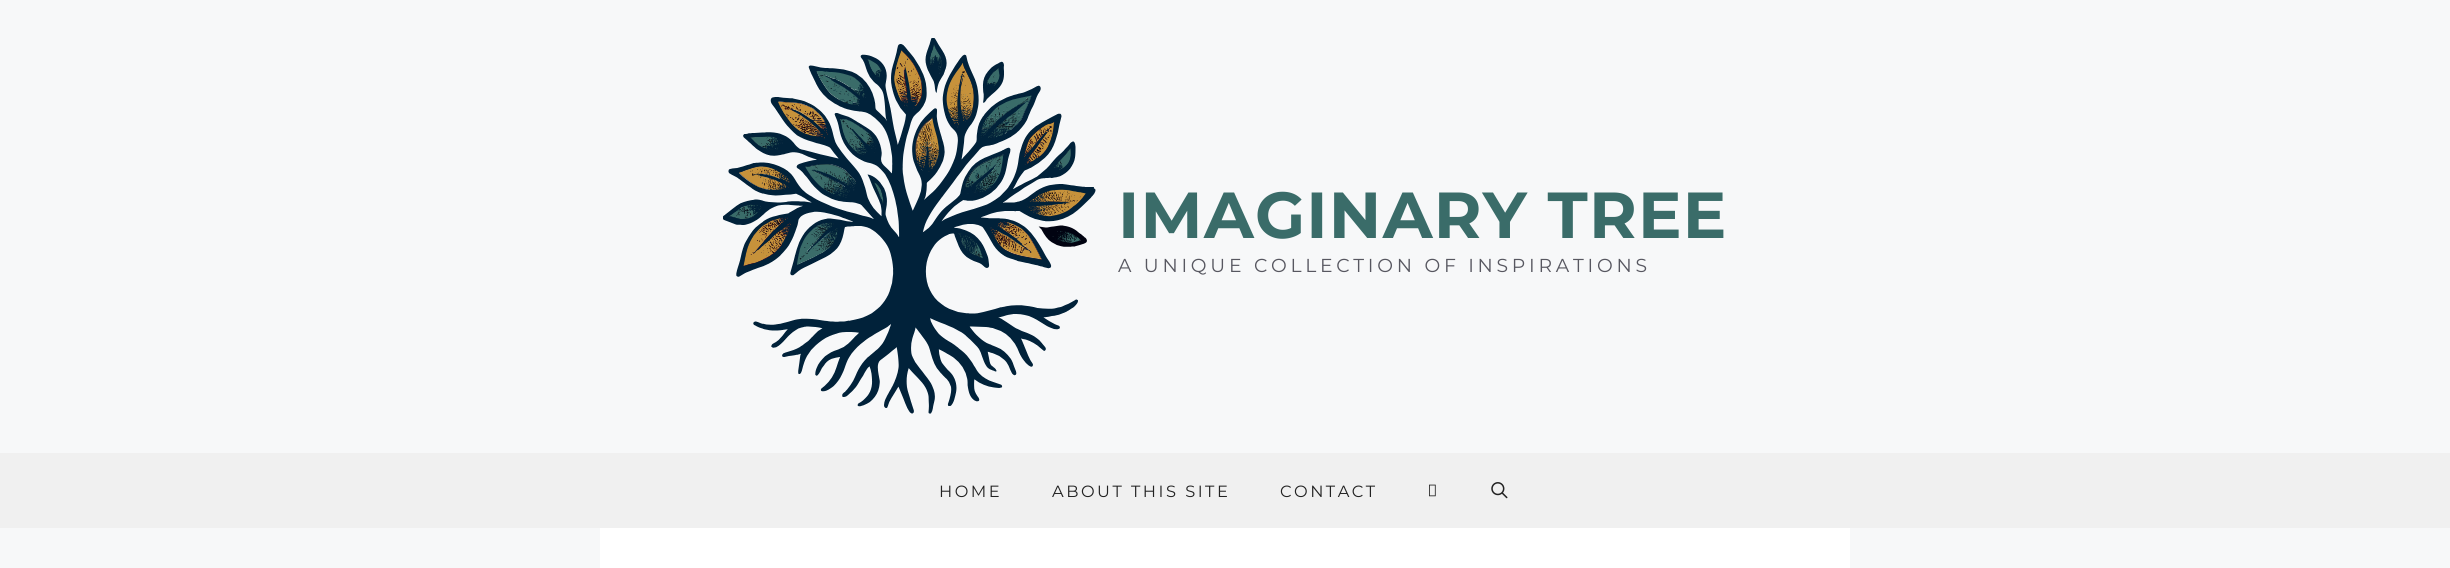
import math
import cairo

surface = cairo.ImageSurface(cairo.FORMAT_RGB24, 2450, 568)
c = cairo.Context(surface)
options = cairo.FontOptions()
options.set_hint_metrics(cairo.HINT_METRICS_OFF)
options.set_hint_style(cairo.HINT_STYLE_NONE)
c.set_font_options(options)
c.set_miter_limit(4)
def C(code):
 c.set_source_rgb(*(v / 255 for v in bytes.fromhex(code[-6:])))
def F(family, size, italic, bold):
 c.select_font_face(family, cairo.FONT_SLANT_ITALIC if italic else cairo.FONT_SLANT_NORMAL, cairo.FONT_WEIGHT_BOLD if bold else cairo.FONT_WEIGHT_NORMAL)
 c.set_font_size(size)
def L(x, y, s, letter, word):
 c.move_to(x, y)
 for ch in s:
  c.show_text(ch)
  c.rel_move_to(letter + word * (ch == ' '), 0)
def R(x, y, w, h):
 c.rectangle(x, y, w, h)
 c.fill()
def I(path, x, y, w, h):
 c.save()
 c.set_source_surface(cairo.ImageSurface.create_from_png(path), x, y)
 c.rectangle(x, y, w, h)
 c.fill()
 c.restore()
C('f7f8f9')
c.paint()
I('1.png',723,38,373,376)
F('Montserrat',65,0,1)
C('3a6c69')
L(1118,238,'IMAGINARY TREE',1.25,0)
F('Montserrat',18.75,0,0)
C('575760')
L(1118,272,'A UNIQUE COLLECTION OF INSPIRATIONS',3.75,0)
C('f0f0f0')
R(0,453,2450,75)
F('Montserrat',16.25,0,0)
C('222222')
L(939,497,'HOME',2.5,0)
L(1052,497,'ABOUT THIS SITE',2.5,0)
L(1280,497,'CONTACT',2.5,0)
I('2.png',1429,484,7,13)
I('3.png',1491,482,17,17)
C('ffffff')
R(600,528,1250,40)
surface.write_to_png('o.png')
